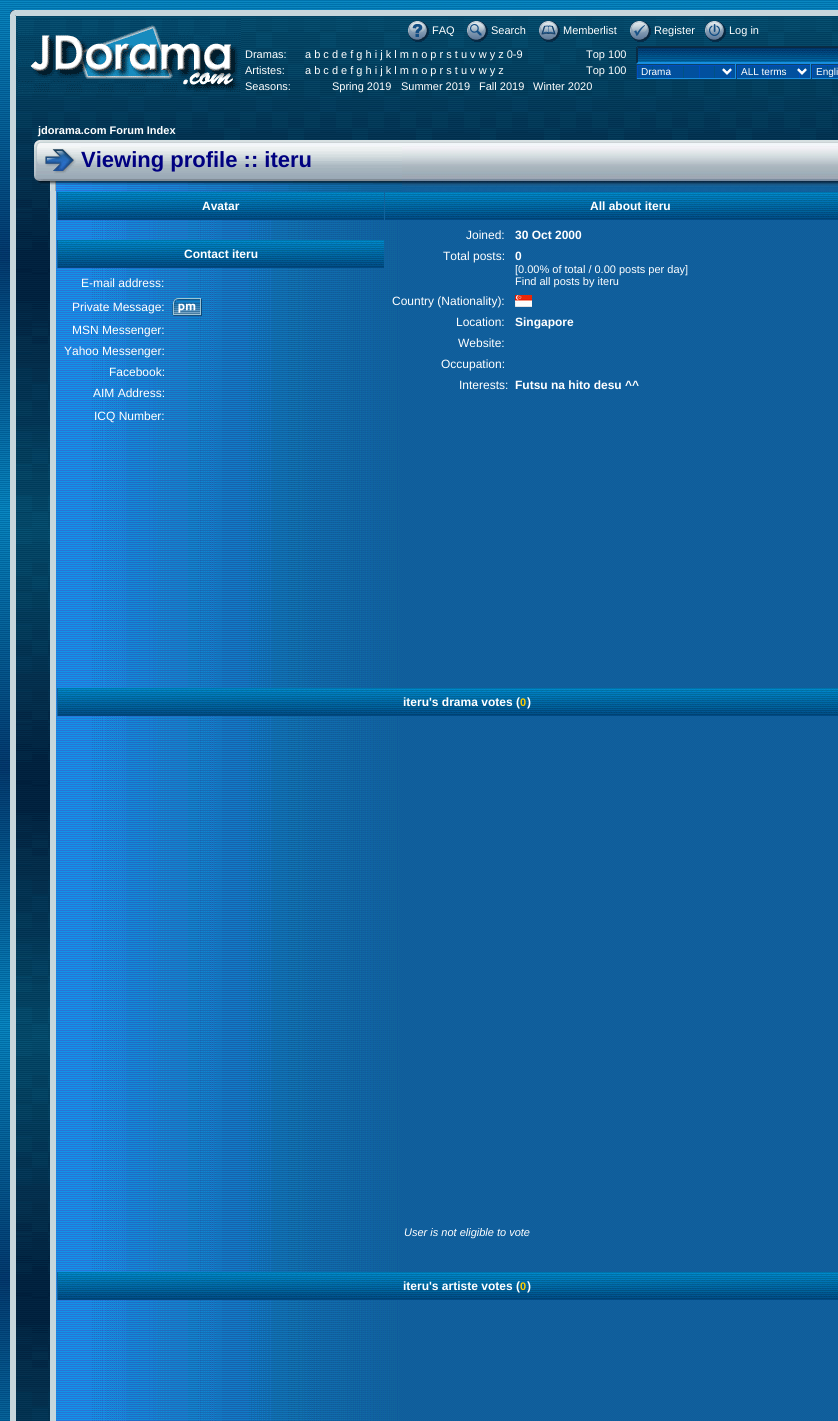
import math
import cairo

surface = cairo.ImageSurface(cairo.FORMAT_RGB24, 838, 1421)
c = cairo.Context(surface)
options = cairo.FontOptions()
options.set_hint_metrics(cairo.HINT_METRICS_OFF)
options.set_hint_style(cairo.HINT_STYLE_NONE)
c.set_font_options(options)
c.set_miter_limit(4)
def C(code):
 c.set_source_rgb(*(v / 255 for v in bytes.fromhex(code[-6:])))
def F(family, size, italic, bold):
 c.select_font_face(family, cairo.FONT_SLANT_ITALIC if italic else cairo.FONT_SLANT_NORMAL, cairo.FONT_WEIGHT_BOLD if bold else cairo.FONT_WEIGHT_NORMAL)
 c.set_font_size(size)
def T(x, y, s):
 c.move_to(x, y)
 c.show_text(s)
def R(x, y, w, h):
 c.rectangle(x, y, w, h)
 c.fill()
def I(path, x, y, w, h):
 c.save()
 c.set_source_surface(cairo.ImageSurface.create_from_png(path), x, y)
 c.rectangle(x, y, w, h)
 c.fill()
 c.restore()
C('ffffff')
c.paint()
I('1.png',0,0,838,1421)
I('2.png',10,10,6,6)
C('c7d6dc')
R(16,10,822,6)
R(10,16,6,1405)
I('3.png',16,16,822,1405)
I('4.png',18,19,223,74)
I('5.png',408,21,21,21)
F('Liberation Sans',11,0,0)
C('ffffff')
T(432,34,'FAQ')
I('6.png',467,21,21,21)
T(491,34,'Search')
I('7.png',539,21,21,21)
T(563,34,'Memberlist')
I('8.png',630,21,21,21)
T(654,34,'Register')
I('9.png',705,21,21,21)
T(729,34,'Log in')
T(245,58,'Dramas:')
T(305,58,'a b c d e f g h i j k l m n o p r s t u v w y z 0-9')
T(586,58,'Top 100')
T(245,74,'Artistes:')
T(305,74,'a b c d e f g h i j k l m n o p r s t u v w y z')
T(586,74,'Top 100')
T(245,90,'Seasons:')
T(332,90,'Spring 2019')
T(401,90,'Summer 2019')
T(479,90,'Fall 2019')
T(533,90,'Winter 2020')
I('10.png',636,46,202,18)
C('092c45')
c.new_path()
c.move_to(636,46)
c.line_to(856,46)
c.line_to(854,48)
c.line_to(638,48)
c.close_path()
c.fill()
C('178ddf')
c.new_path()
c.move_to(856,64)
c.line_to(636,64)
c.line_to(638,62)
c.line_to(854,62)
c.close_path()
c.fill()
C('092c45')
c.new_path()
c.move_to(636,64)
c.line_to(636,46)
c.line_to(638,48)
c.line_to(638,62)
c.close_path()
c.fill()
I('11.png',637,65,98,13)
C('0d4267')
R(636,64,202,1)
C('178ddf')
R(735,64,1,15)
R(636,78,100,1)
C('0d4267')
R(636,64,1,15)
c.new_path()
c.move_to(723,69.5)
c.line_to(727,73.5)
c.line_to(731,69.5)
C('ffffff')
c.stroke()
F('Liberation Sans',10,0,0)
T(641,75,'Drama')
I('12.png',737,65,73,13)
C('178ddf')
R(810,64,1,15)
R(736,78,102,1)
C('0d4267')
R(736,64,1,15)
c.new_path()
c.move_to(798,69.5)
c.line_to(802,73.5)
c.line_to(806,69.5)
C('ffffff')
c.stroke()
T(741,75,'ALL terms')
I('13.png',812,65,26,13)
C('0d4267')
R(811,64,1,15)
C('ffffff')
T(816,75,'Engli')
F('Liberation Sans',11,0,1)
T(38,134,'jdorama.com Forum Index')
I('14.png',34,140,22,51)
I('15.png',56,140,782,51)
I('16.png',56,146,346,45)
I('17.png',56,147,25,27)
F('Liberation Sans',22,0,1)
C('000080')
T(81,167,'Viewing profile :: iteru')
C('c7d6dc')
R(50,191,6,1230)
I('18.png',56,191,782,1230)
I('19.png',58,192,326,28)
C('13619f')
R(57,192,1,28)
F('Liberation Sans',12,0,1)
C('ffffff')
T(202,210,'Avatar')
I('20.png',385,192,453,28)
T(590,210,'All about iteru')
I('19.png',58,240,326,28)
C('13619f')
R(57,240,1,28)
C('ffffff')
T(184,258,'Contact iteru')
F('Liberation Sans',12,0,0)
T(466,239,'Joined:')
F('Liberation Sans',12,0,1)
T(515,239,'30 Oct 2000')
F('Liberation Sans',12,0,0)
T(443,260,'Total posts:')
F('Liberation Sans',12,0,1)
T(515,260,'0')
F('Liberation Sans',11,0,0)
T(515,273,'[0.00% of total / 0.00 posts per day]')
T(515,285,'Find all posts by iteru')
F('Liberation Sans',12,0,0)
T(392,305,'Country (Nationality):')
I('21.png',515,295,17,12)
T(456,326,'Location:')
F('Liberation Sans',12,0,1)
T(515,326,'Singapore')
F('Liberation Sans',12,0,0)
T(458,347,'Website:')
T(441,368,'Occupation:')
T(459,389,'Interests:')
F('Liberation Sans',12,0,1)
T(515,389,'Futsu na hito desu ^^')
F('Liberation Sans',12,0,0)
T(81,287,'E-mail address:')
T(72,311,'Private Message:')
I('22.png',172,298,30,18)
T(72,334,'MSN Messenger:')
T(64,355,'Yahoo Messenger:')
T(109,376,'Facebook:')
T(93,397,'AIM Address:')
T(94,420,'ICQ Number:')
I('23.png',58,688,780,28)
C('13619f')
R(57,688,1,28)
F('Liberation Sans',12,0,1)
C('ffffff')
T(403,706,'iteru\'s drama votes (')
F('Liberation Sans',11,0,1)
C('ffce00')
T(520,706,'0')
F('Liberation Sans',12,0,1)
C('ffffff')
T(527,706,')')
F('Liberation Sans',11,1,0)
T(404,1236,'User is not eligible to vote')
I('23.png',58,1272,780,28)
C('13619f')
R(57,1272,1,28)
F('Liberation Sans',12,0,1)
C('ffffff')
T(403,1290,'iteru\'s artiste votes (')
F('Liberation Sans',11,0,1)
C('ffce00')
T(520,1290,'0')
F('Liberation Sans',12,0,1)
C('ffffff')
T(527,1290,')')
surface.write_to_png('o.png')
